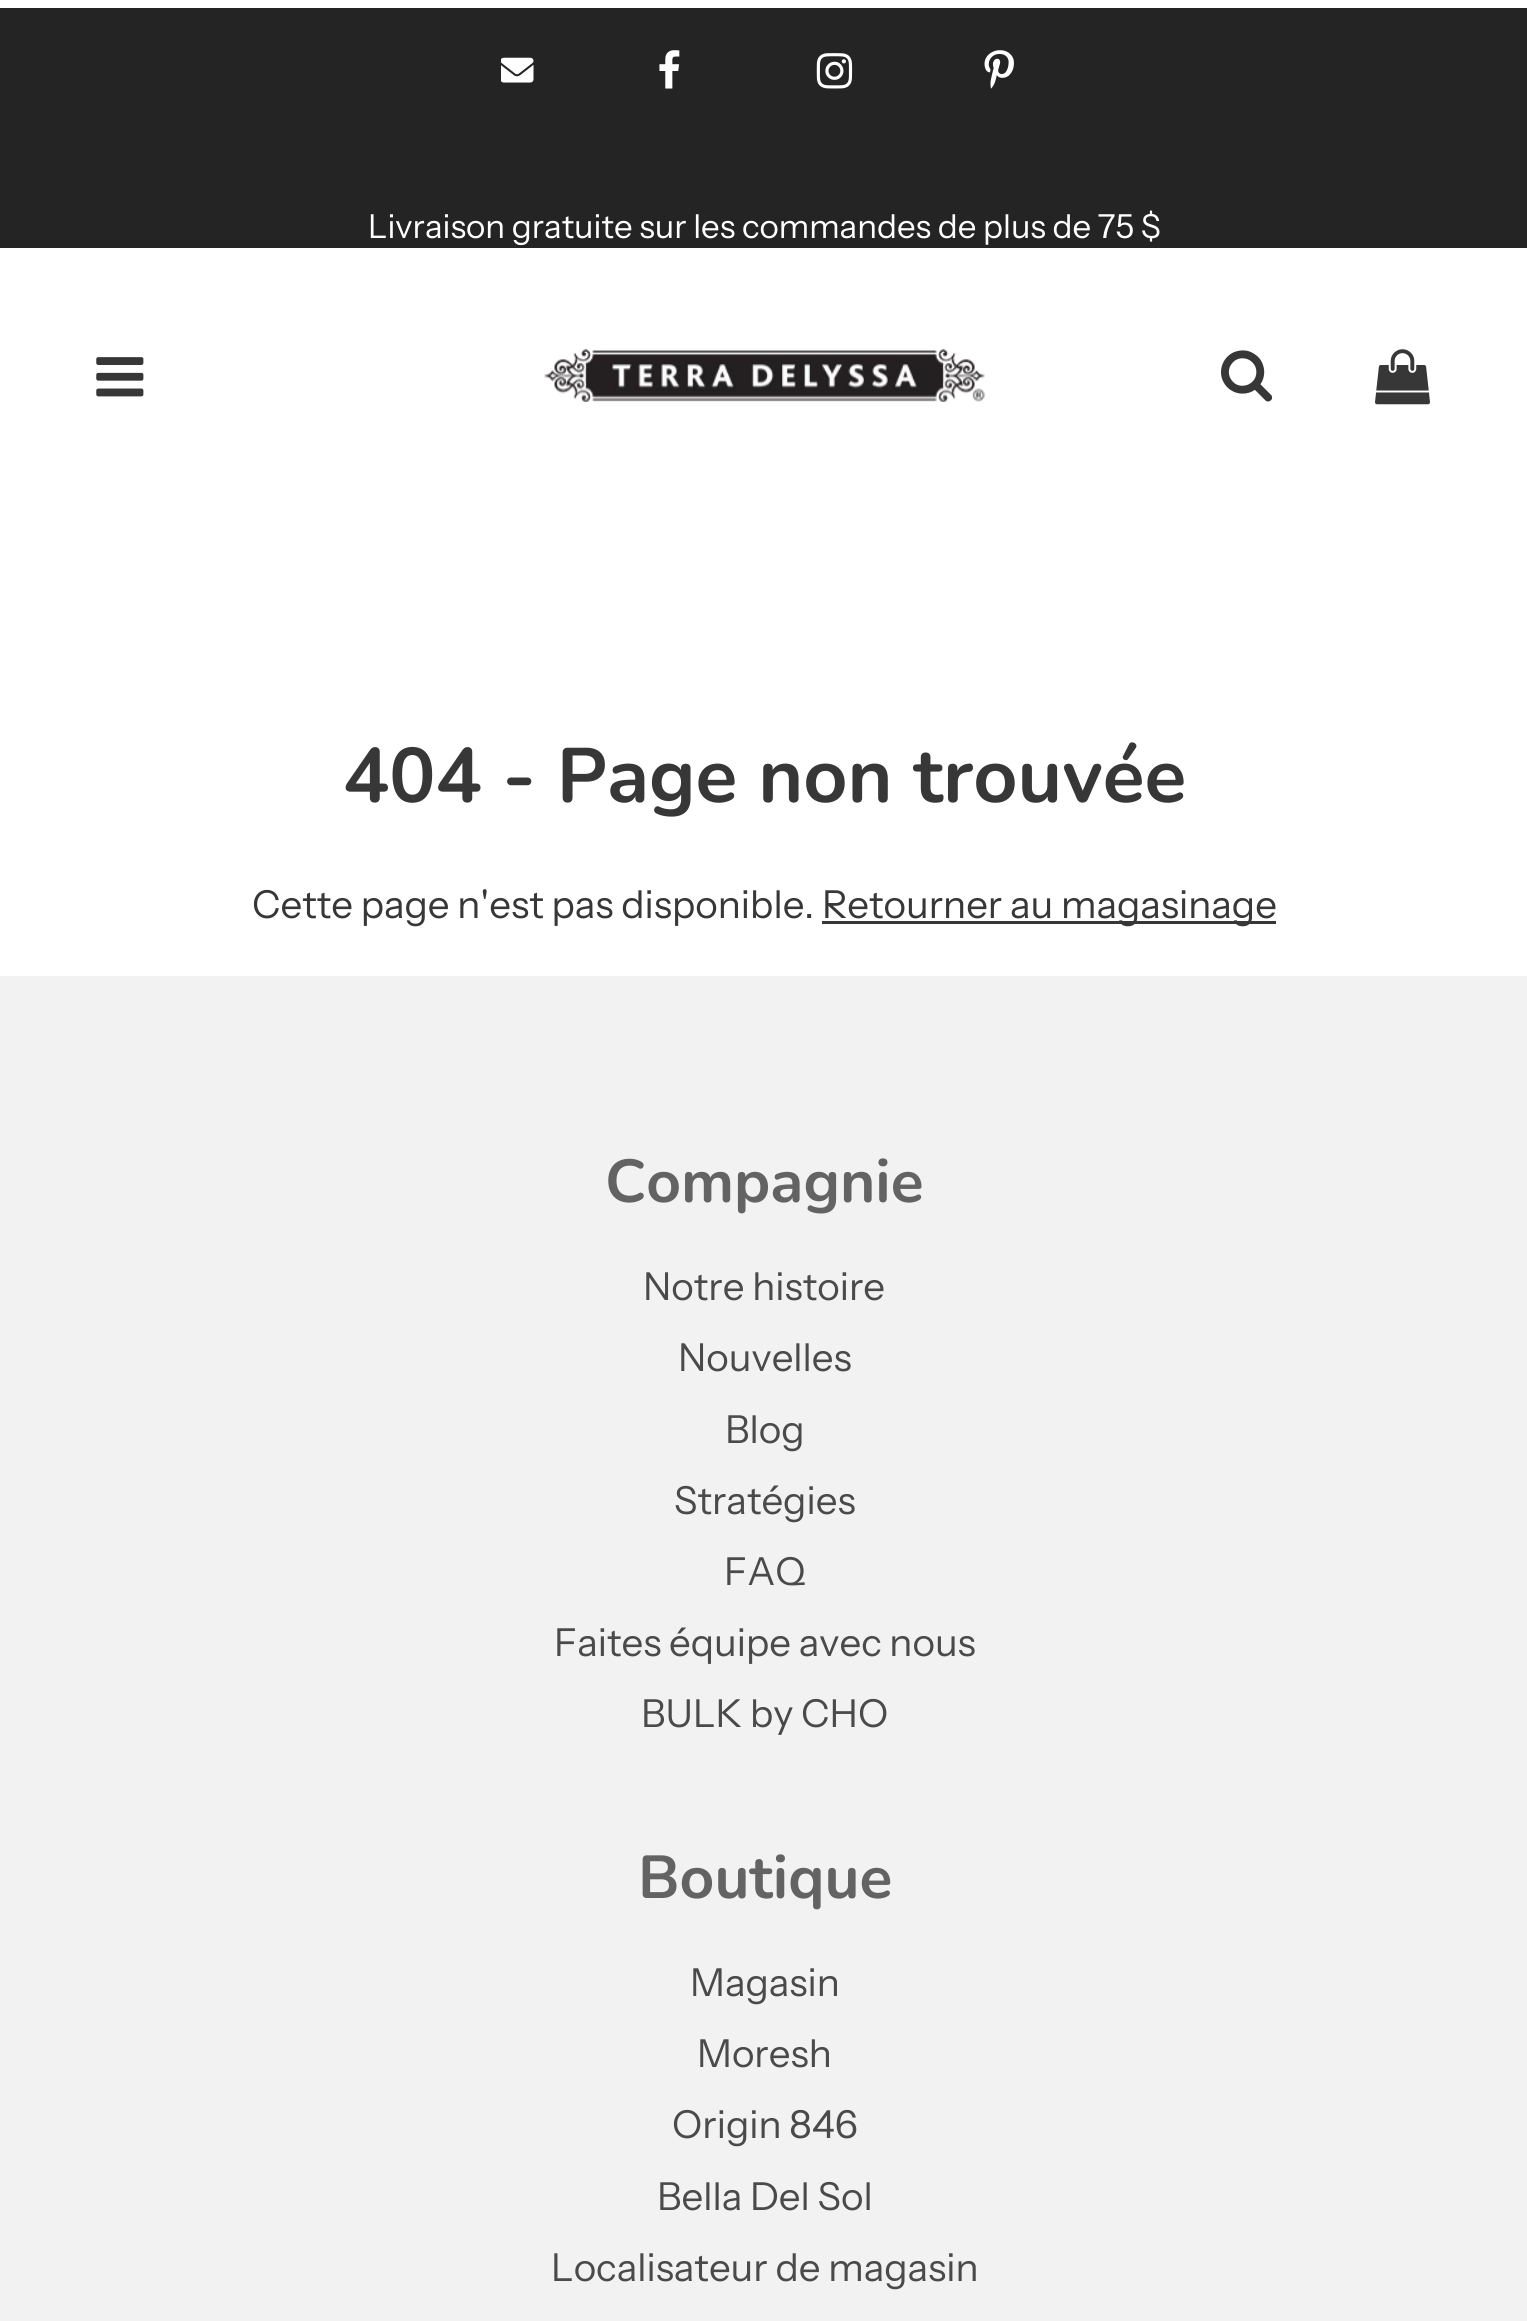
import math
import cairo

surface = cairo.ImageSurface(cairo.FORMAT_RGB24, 1527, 2321)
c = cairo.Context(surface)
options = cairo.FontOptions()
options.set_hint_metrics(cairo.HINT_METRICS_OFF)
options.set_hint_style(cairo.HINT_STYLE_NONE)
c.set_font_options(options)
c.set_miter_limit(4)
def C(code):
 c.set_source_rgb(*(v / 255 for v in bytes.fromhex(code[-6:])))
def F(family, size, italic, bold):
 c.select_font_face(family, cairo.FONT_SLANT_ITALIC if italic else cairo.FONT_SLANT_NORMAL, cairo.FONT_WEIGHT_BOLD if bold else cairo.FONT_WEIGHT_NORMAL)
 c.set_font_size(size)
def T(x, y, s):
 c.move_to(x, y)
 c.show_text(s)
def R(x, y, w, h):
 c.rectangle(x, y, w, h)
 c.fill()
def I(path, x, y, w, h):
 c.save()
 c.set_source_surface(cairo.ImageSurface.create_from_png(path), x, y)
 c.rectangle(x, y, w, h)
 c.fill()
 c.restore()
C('ffffff')
c.paint()
C('242424')
R(0,8,1527,240)
I('1.png',501,57,33,26)
I('2.png',659,50,21,39)
I('3.png',816,53,37,36)
I('4.png',984,50,30,39)
F('Instrument Sans',33,0,0)
C('ffffff')
T(368,238,'Livraison gratuite sur les commandes de plus de 75 $')
I('5.png',96,357,48,40)
I('6.png',544,349,441,53)
I('7.png',1221,350,52,52)
I('8.png',1375,349,55,56)
F('Nunito',77,0,1)
C('373737')
T(343,802,'404 - Page non trouvée')
F('Instrument Sans',38.5,0,0)
T(252,918,'Cette page n\'est pas disponible.')
R(822,921,454,3)
T(822,918,'Retourner au magasinage')
C('f2f2f2')
R(0,976,1527,1345)
F('Nunito',60.5,0,1)
C('636363')
T(605,1202,'Compagnie')
F('Instrument Sans',38.5,0,0)
C('4a4a4a')
T(643,1300,'Notre histoire')
T(678,1371,'Nouvelles')
T(725,1443,'Blog')
T(674,1514,'Stratégies')
T(724,1585,'FAQ')
T(554,1656,'Faites équipe avec nous')
T(641,1727,'BULK by CHO')
F('Nunito',60.5,0,1)
C('636363')
T(638,1898,'Boutique')
F('Instrument Sans',38.5,0,0)
C('4a4a4a')
T(690,1996,'Magasin')
T(697,2067,'Moresh')
T(672,2138,'Origin 846')
T(657,2210,'Bella Del Sol')
T(551,2281,'Localisateur de magasin')
surface.write_to_png('o.png')
